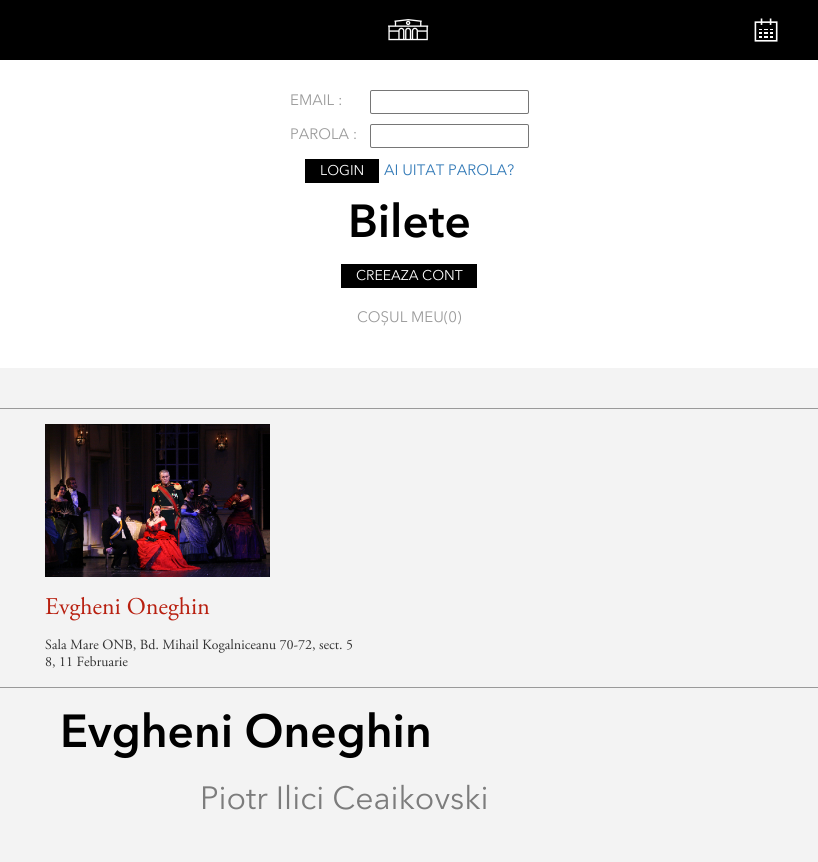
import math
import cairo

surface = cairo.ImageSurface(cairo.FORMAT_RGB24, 818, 862)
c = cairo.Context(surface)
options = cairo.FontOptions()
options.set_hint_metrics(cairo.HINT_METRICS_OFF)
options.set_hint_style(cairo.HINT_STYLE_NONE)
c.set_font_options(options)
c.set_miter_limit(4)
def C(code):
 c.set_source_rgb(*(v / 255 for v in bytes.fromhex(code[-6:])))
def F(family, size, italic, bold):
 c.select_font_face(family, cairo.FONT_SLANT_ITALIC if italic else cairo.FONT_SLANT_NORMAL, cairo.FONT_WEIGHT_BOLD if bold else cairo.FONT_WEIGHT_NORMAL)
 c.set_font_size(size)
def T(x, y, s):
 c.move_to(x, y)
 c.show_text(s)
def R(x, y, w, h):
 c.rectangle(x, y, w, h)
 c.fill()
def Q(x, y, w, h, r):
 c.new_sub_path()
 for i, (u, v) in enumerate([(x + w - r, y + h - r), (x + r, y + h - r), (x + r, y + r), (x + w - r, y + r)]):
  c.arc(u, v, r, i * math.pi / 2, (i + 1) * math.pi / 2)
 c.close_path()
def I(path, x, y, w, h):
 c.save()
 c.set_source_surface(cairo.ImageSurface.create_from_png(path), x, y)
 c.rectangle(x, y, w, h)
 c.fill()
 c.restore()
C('f3f3f3')
c.paint()
C('ffffff')
R(0,60,818,308)
C('000000')
R(0,0,818,60)
I('1.png',388,19,41,22)
I('2.png',754,18,24,24)
F('Avenir Next',15,0,0)
C('9b9b9b')
T(290,105,'EMAIL :')
Q(370.5,90.5,158,23,1.5)
C('767676')
c.set_line_width(1)
c.stroke()
C('9b9b9b')
T(290,139,'PAROLA :')
Q(370.5,124.5,158,23,1.5)
C('767676')
c.stroke()
C('000000')
R(305,159,74,24)
F('Avenir Next',14,0,0)
C('ffffff')
T(320,175,'LOGIN')
F('Avenir Next',15,0,0)
C('337ab7')
T(384,175,'AI UITAT PAROLA?')
F('Avenir Next SemiBold',46,0,0)
C('000000')
T(348,237,'Bilete')
R(341,264,136,24)
F('Avenir Next',14,0,0)
C('ffffff')
T(356,280,'CREEAZA CONT')
F('Avenir Next',15,0,0)
C('9b9b9b')
T(357,322,'COȘUL MEU(0)')
C('999999')
R(0,408,818,1)
R(0,687,818,1)
I('3.png',45,424,225,153)
I('4.png',45,596,165,25)
I('5.png',45,639,307,14)
I('6.png',45,656,83,12)
F('Avenir Next SemiBold',46,0,0)
C('000000')
T(60,747,'Evgheni Oneghin')
F('Avenir Next',32,0,0)
C('7c7c7c')
T(200,809,'Piotr Ilici Ceaikovski')
surface.write_to_png('o.png')
